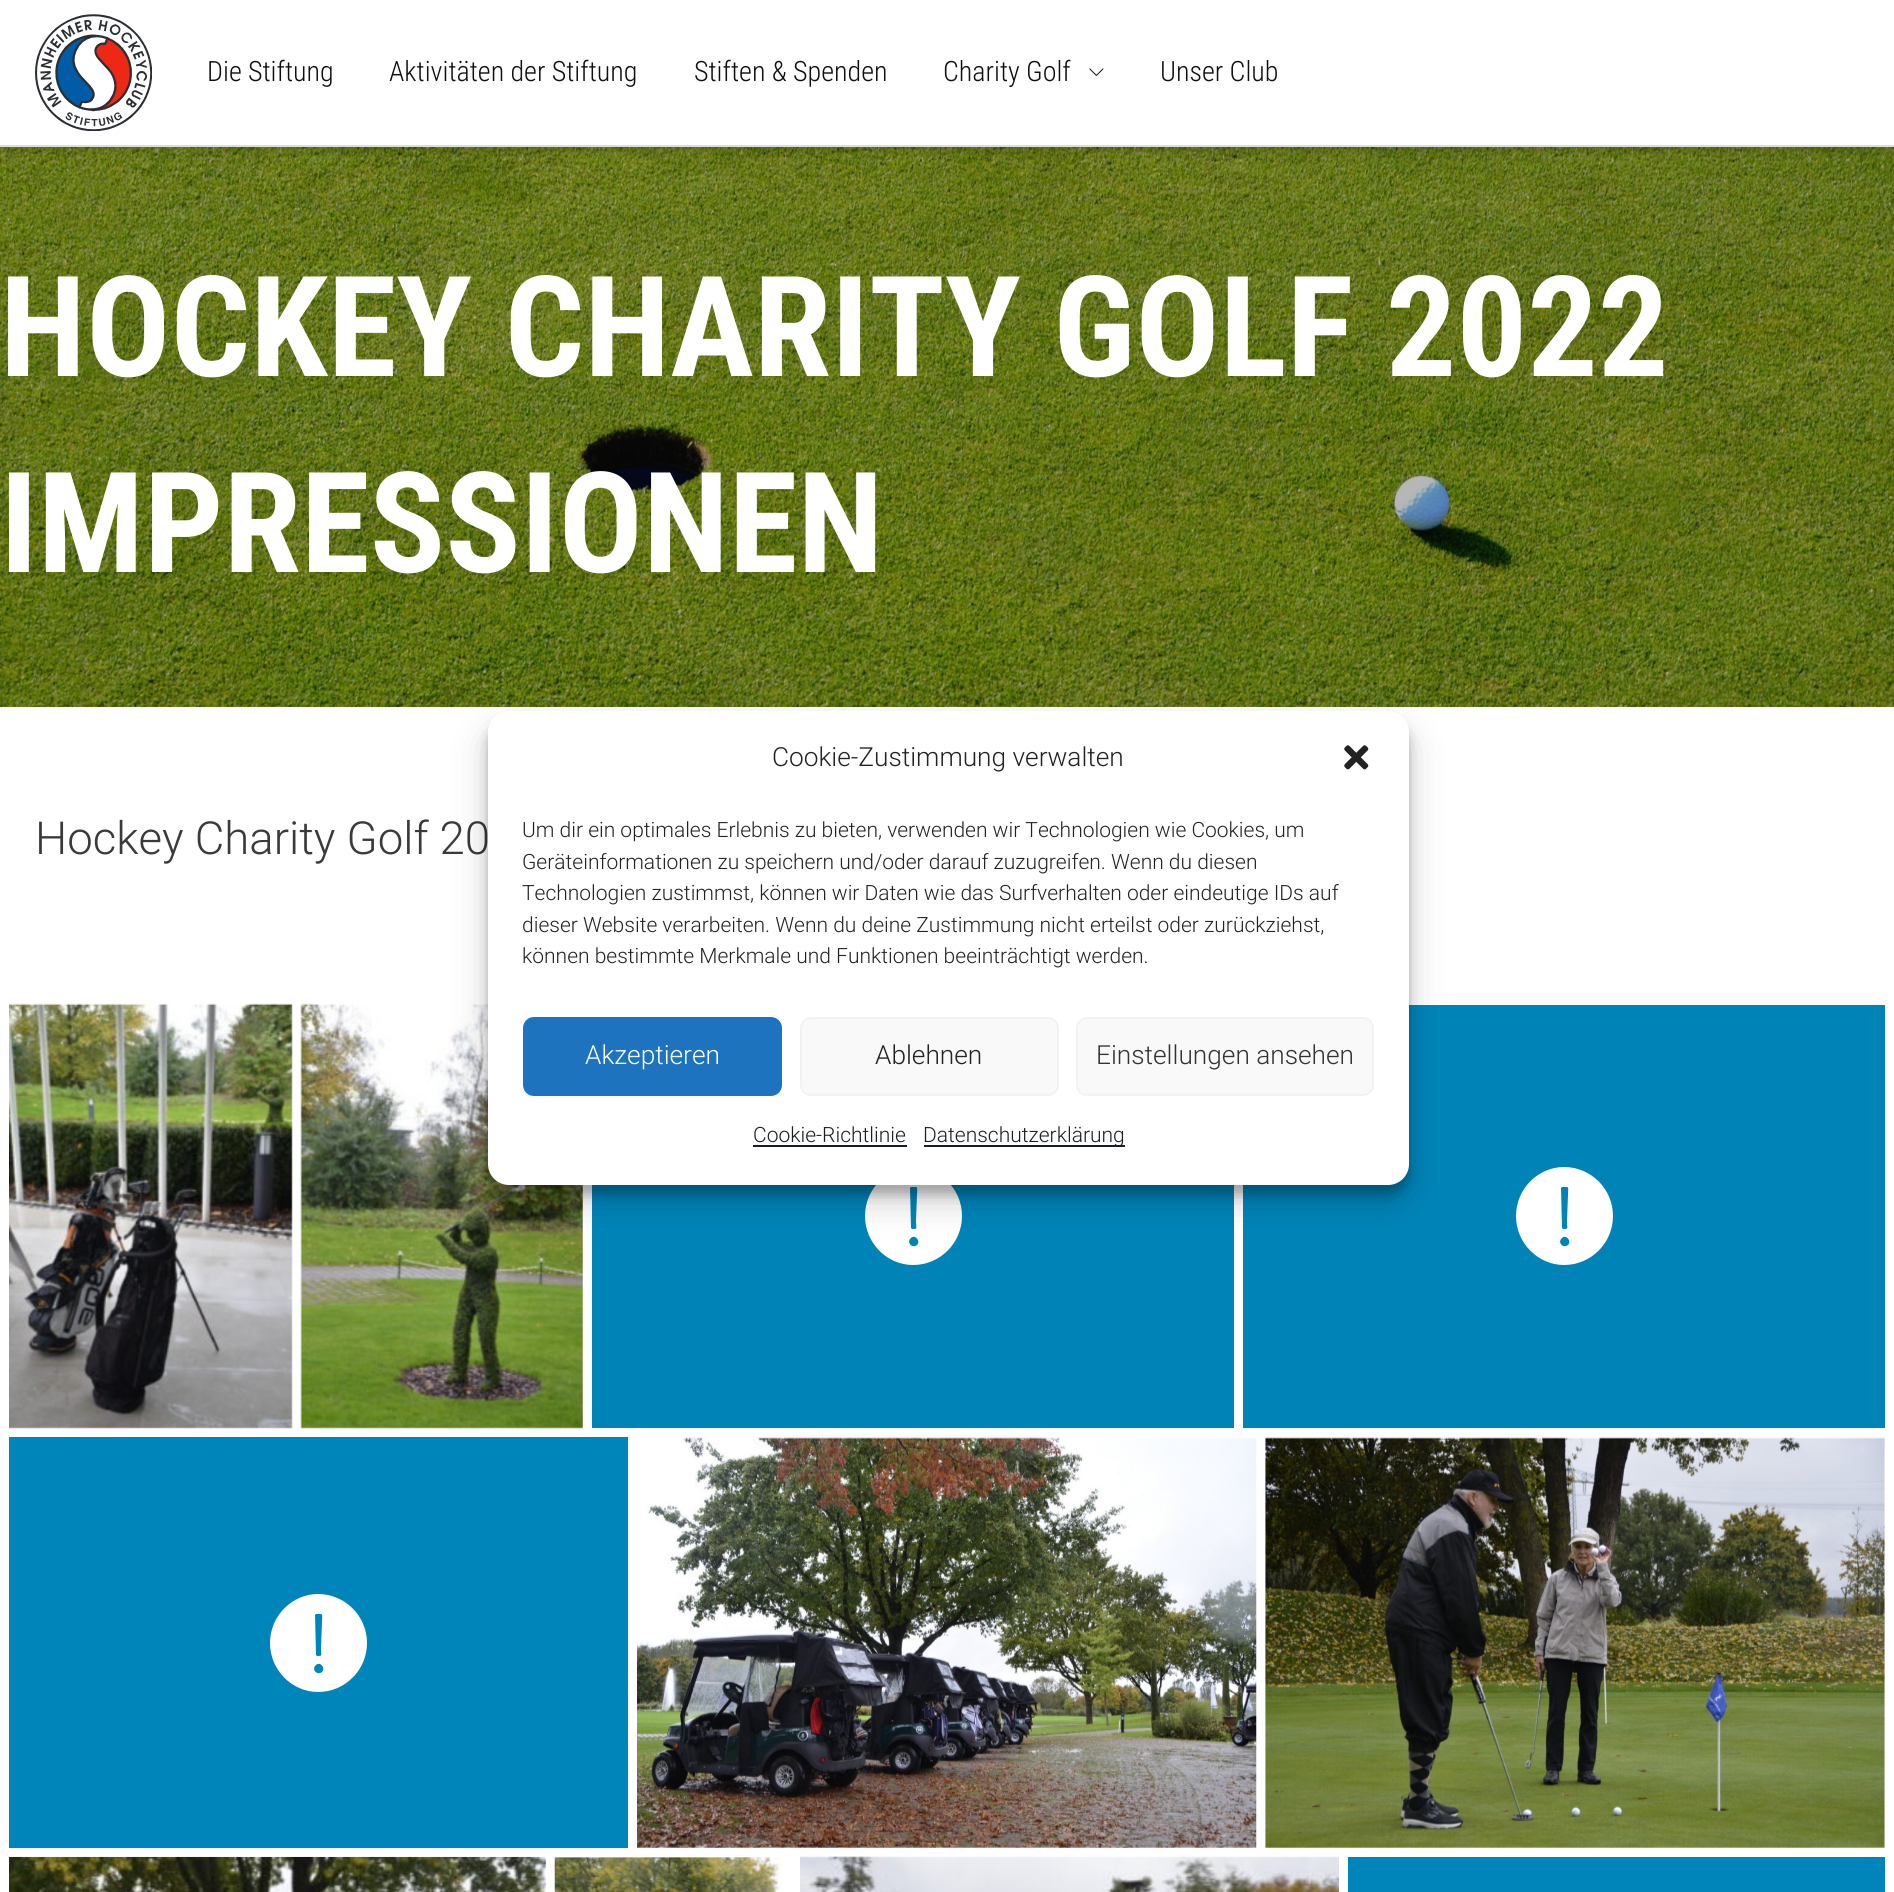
import math
import cairo

surface = cairo.ImageSurface(cairo.FORMAT_RGB24, 1894, 1892)
c = cairo.Context(surface)
options = cairo.FontOptions()
options.set_hint_metrics(cairo.HINT_METRICS_OFF)
options.set_hint_style(cairo.HINT_STYLE_NONE)
c.set_font_options(options)
c.set_miter_limit(4)
def C(code):
 c.set_source_rgb(*(v / 255 for v in bytes.fromhex(code[-6:])))
def F(family, size, italic, bold):
 c.select_font_face(family, cairo.FONT_SLANT_ITALIC if italic else cairo.FONT_SLANT_NORMAL, cairo.FONT_WEIGHT_BOLD if bold else cairo.FONT_WEIGHT_NORMAL)
 c.set_font_size(size)
def T(x, y, s):
 c.move_to(x, y)
 c.show_text(s)
def R(x, y, w, h):
 c.rectangle(x, y, w, h)
 c.fill()
def Q(x, y, w, h, r):
 c.new_sub_path()
 for i, (u, v) in enumerate([(x + w - r, y + h - r), (x + r, y + h - r), (x + r, y + r), (x + w - r, y + r)]):
  c.arc(u, v, r, i * math.pi / 2, (i + 1) * math.pi / 2)
 c.close_path()
def S(x, y, w, h, r, blur, alpha):
 c.push_group_with_content(cairo.CONTENT_ALPHA)
 c.set_operator(cairo.OPERATOR_SOURCE)
 for i in range(15, -16, -2):
  e = blur * i / 6
  if min(w, h) + 2 * e > 0:
   c.set_source_rgba(0, 0, 0, alpha * math.erfc((i - 1) / 8.5) / 2)
   Q(x - e, y - e, w + 2 * e, h + 2 * e, max(0, min(r + e + blur * .6, min(w, h) / 2 + e)))
   c.fill()
 c.mask(c.pop_group())
def I(path, x, y, w, h):
 c.save()
 c.set_source_surface(cairo.ImageSurface.create_from_png(path), x, y)
 c.rectangle(x, y, w, h)
 c.fill()
 c.restore()
C('ffffff')
c.paint()
I('3.png',0,147,1894,560)
c.save()
c.rectangle(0,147,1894,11)
c.clip()
C('000000')
S(0,5,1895,147,0,5,.16)
c.restore()
C('dddddd')
R(0,145,1894,2)
I('1.png',35,14,117,117)
F('Roboto Condensed Light',28,0,0)
C('0f0f0f')
T(207,81,'Die Stiftung')
T(389,81,'Aktivitäten der Stiftung')
T(694,81,'Stiften & Spenden')
T(943,81,'Charity Golf')
I('2.png',1089,68,15,8)
T(1160,81,'Unser Club')
F('Roboto Condensed',140,0,1)
C('ffffff')
T(0,376,'HOCKEY CHARITY GOLF 2022')
T(0,572,'IMPRESSIONEN')
F('Roboto Light',45.5,0,0)
C('3a3a3a')
T(35,854,'Hockey Charity Golf 20')
I('4.png',9,1003,284,426)
I('5.png',300,1003,283,426)
C('0084b8')
R(592,1185,642,243)
C('ffffff')
c.new_path()
c.move_to(913,1167)
c.curve_to(887,1167,865,1189,865,1216)
c.curve_to(865,1243,887,1265,913,1265)
c.curve_to(940,1265,962,1243,962,1216)
c.curve_to(962,1189,940,1167,913,1167)
c.close_path()
c.move_to(911,1187)
c.curve_to(919,1187,917,1186,917,1195)
c.line_to(916,1221)
c.curve_to(916,1229,918,1229,912,1229)
c.line_to(911,1228)
c.line_to(910,1188)
c.close_path()
c.move_to(917,1245)
c.curve_to(912,1249,906,1242,911,1238)
c.curve_to(915,1234,921,1241,917,1245)
c.close_path()
c.fill()
C('0084b8')
R(1243,1005,642,423)
C('ffffff')
c.new_path()
c.move_to(1564,1167)
c.curve_to(1538,1167,1516,1189,1516,1216)
c.curve_to(1516,1243,1538,1265,1564,1265)
c.curve_to(1591,1265,1613,1243,1613,1216)
c.curve_to(1613,1189,1591,1167,1564,1167)
c.close_path()
c.move_to(1562,1187)
c.curve_to(1570,1187,1568,1186,1568,1195)
c.line_to(1567,1221)
c.curve_to(1567,1229,1569,1229,1563,1229)
c.line_to(1562,1228)
c.line_to(1561,1188)
c.close_path()
c.move_to(1568,1245)
c.curve_to(1563,1249,1557,1242,1562,1238)
c.curve_to(1566,1234,1572,1241,1568,1245)
c.close_path()
c.fill()
C('0085ba')
R(9,1437,619,411)
C('ffffff')
c.new_path()
c.move_to(318,1594)
c.curve_to(292,1594,270,1616,270,1643)
c.curve_to(270,1670,292,1692,318,1692)
c.curve_to(345,1692,367,1670,367,1643)
c.curve_to(367,1616,345,1594,318,1594)
c.close_path()
c.move_to(316,1614)
c.curve_to(324,1614,322,1613,322,1622)
c.line_to(321,1648)
c.curve_to(321,1656,323,1656,317,1656)
c.line_to(316,1655)
c.line_to(315,1615)
c.close_path()
c.move_to(322,1672)
c.curve_to(317,1676,311,1669,316,1665)
c.curve_to(320,1661,326,1668,322,1672)
c.close_path()
c.fill()
I('6.png',637,1437,620,411)
I('7.png',1265,1437,620,411)
I('8.png',9,1856,538,36)
I('9.png',554,1857,229,35)
I('10.png',800,1856,539,36)
C('0085ba')
R(1348,1857,537,35)
C('000000')
S(488,721,921,474,21,5,.23)
S(488,728,921,474,21,17.5,.19)
C('ffffff')
Q(488,711,921,474,21)
c.fill()
F('Roboto Light',26.25,0,0)
C('222222')
T(772,766,'Cookie-Zustimmung verwalten')
I('11.png',1344,745,25,25)
F('Roboto Light',21,0,0)
T(522,837,'Um dir ein optimales Erlebnis zu bieten, verwenden wir Technologien wie Cookies, um')
T(522,869,'Geräteinformationen zu speichern und/oder darauf zuzugreifen. Wenn du diesen')
T(522,900,'Technologien zustimmst, können wir Daten wie das Surfverhalten oder eindeutige IDs auf')
T(522,932,'dieser Website verarbeiten. Wenn du deine Zustimmung nicht erteilst oder zurückziehst,')
T(522,963,'können bestimmte Merkmale und Funktionen beeinträchtigt werden.')
C('1e73be')
Q(524,1018,257,77,10)
c.fill_preserve()
c.stroke()
F('Roboto Light',26.25,0,0)
C('ffffff')
T(585,1064,'Akzeptieren')
C('f9f9f9')
Q(801,1018,257,77,10)
c.fill_preserve()
C('f2f2f2')
c.stroke()
C('222222')
T(875,1064,'Ablehnen')
C('f9f9f9')
Q(1077,1018,296,77,10)
c.fill_preserve()
C('f2f2f2')
c.stroke()
C('333333')
T(1096,1064,'Einstellungen ansehen')
F('Roboto Light',21,0,0)
C('191e23')
T(753,1142,'Cookie-Richtlinie')
R(753,1145,154,2)
R(924,1145,201,2)
T(923,1142,'Datenschutzerklärung')
surface.write_to_png('o.png')
